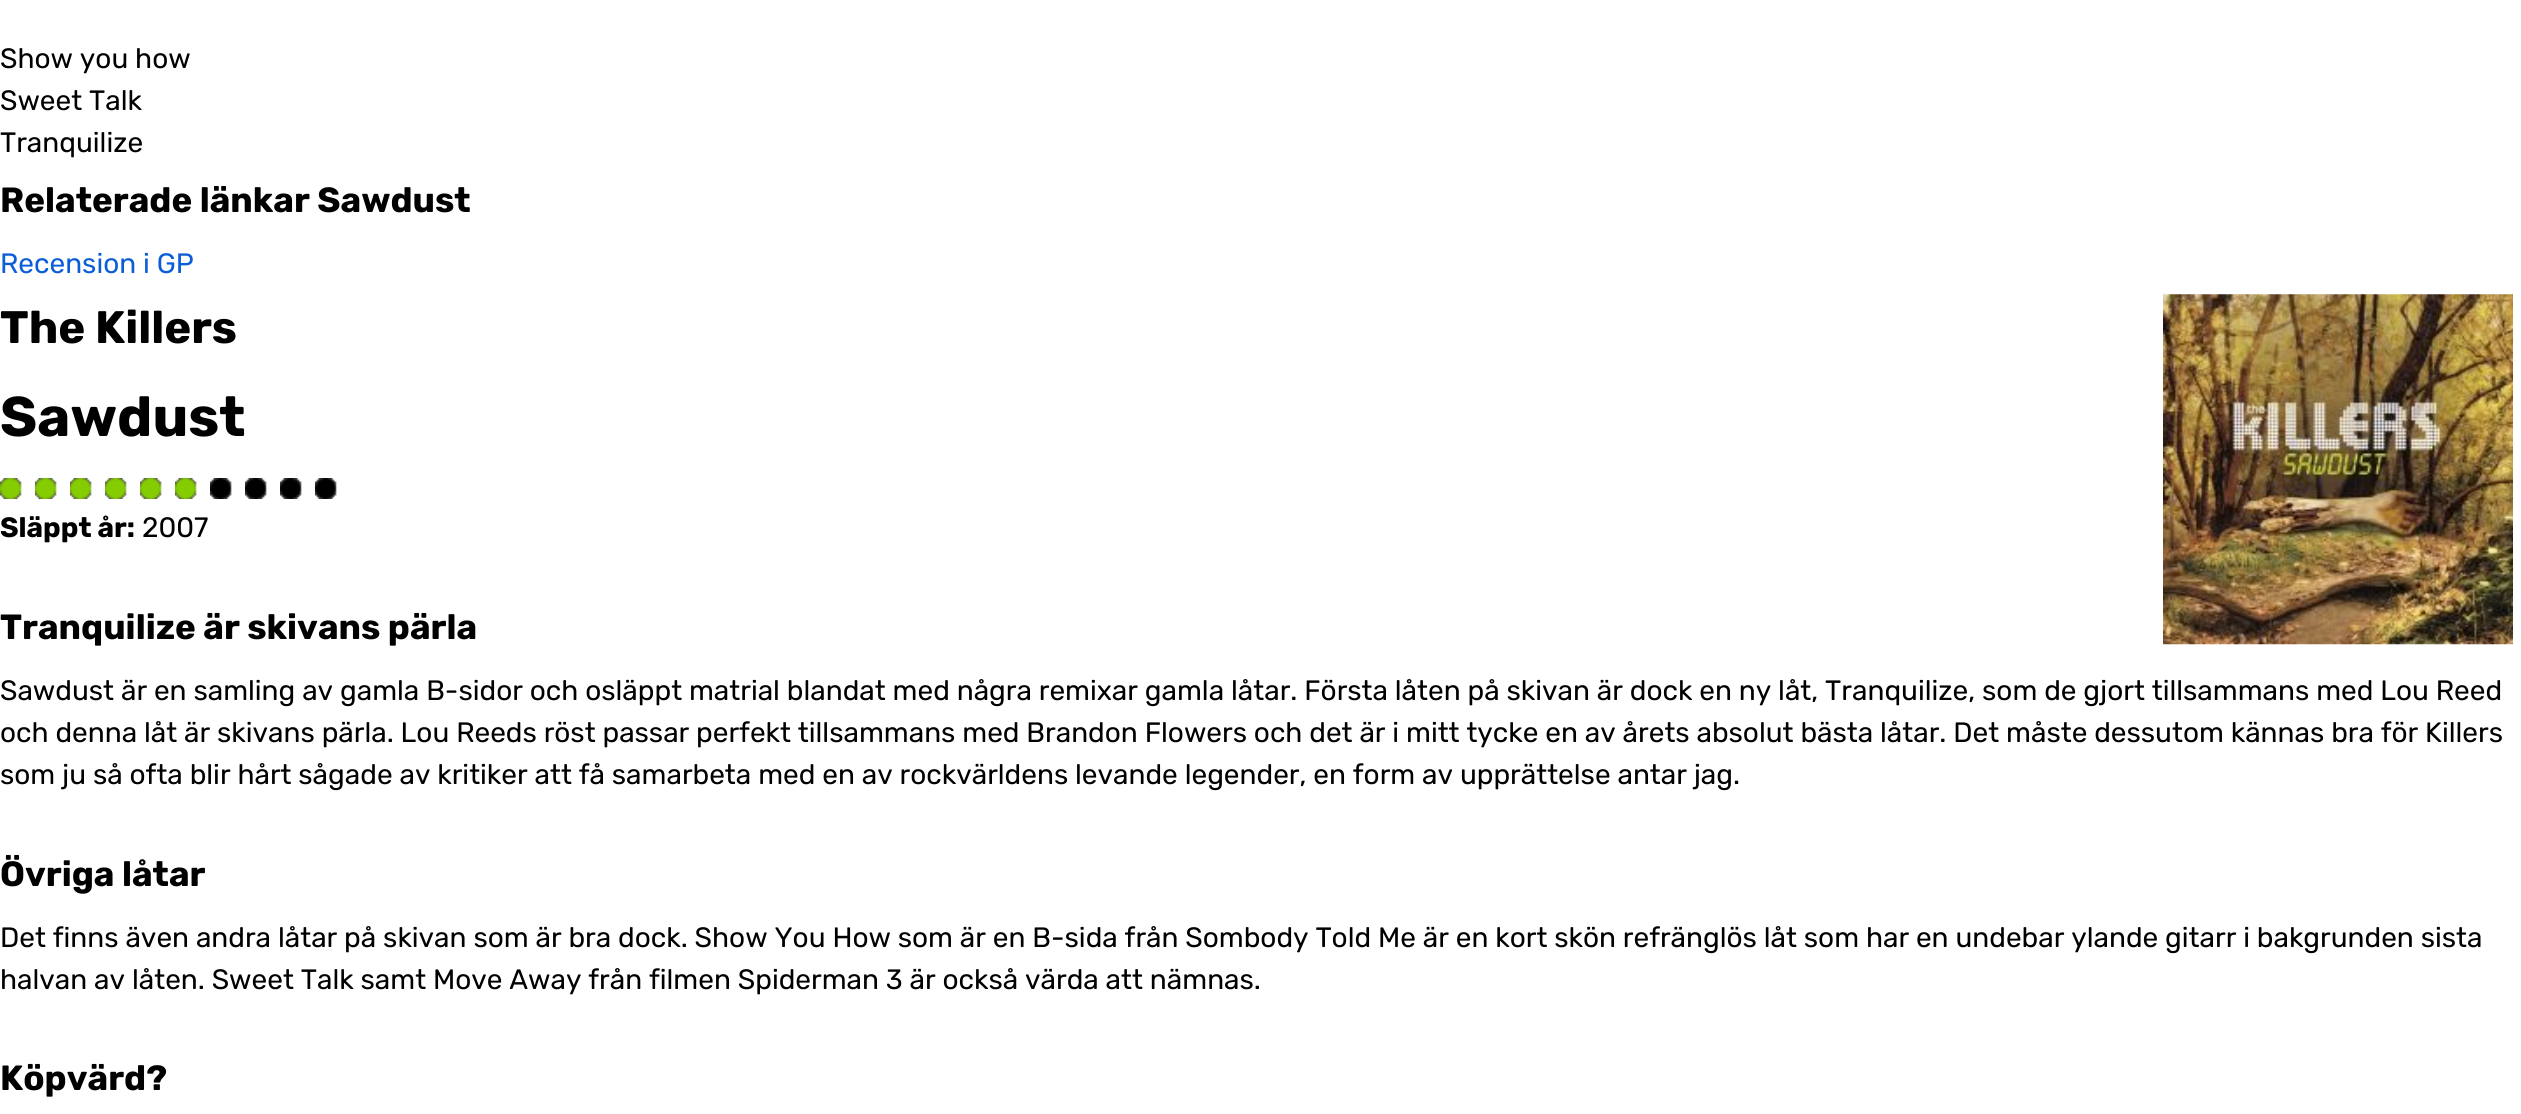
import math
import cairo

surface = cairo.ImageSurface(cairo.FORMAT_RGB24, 2521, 1114)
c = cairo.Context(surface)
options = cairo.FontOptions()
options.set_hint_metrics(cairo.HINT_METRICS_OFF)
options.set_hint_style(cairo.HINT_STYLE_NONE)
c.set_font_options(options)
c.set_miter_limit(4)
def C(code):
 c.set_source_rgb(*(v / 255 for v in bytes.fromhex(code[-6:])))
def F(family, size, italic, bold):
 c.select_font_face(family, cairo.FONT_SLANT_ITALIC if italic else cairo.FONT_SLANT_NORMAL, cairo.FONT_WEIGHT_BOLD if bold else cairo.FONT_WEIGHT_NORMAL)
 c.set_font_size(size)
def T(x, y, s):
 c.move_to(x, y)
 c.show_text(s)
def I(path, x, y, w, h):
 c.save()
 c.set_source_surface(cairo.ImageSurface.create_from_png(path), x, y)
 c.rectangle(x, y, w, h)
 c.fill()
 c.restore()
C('ffffff')
c.paint()
F('Rubik',28,0,0)
C('000000')
T(0,68,'Show you how')
T(0,110,'Sweet Talk')
T(0,152,'Tranquilize')
F('Rubik',35,0,1)
T(0,212,'Relaterade länkar Sawdust')
F('Rubik',28,0,0)
C('0b5ed7')
T(0,273,'Recension i GP')
F('Rubik',45.5,0,1)
C('000000')
T(0,343,'The Killers')
I('1.png',2163,294,350,351)
F('Rubik',56,0,1)
T(0,436,'Sawdust')
I('2.png',0,478,22,21)
I('2.png',35,478,22,21)
I('2.png',70,478,22,21)
I('3.png',105,478,22,21)
I('2.png',140,478,22,21)
I('3.png',175,478,22,21)
I('4.png',210,478,22,21)
I('5.png',245,478,22,21)
I('6.png',280,478,22,21)
I('5.png',315,478,22,21)
F('Rubik',28,0,1)
T(0,537,'Släppt år:')
F('Rubik',28,0,0)
T(142,537,'2007')
F('Rubik',35,0,1)
T(0,639,'Tranquilize är skivans pärla')
F('Rubik',28,0,0)
T(0,700,'Sawdust är en samling av gamla B-sidor och osläppt matrial blandat med några remixar gamla låtar. Första låten på skivan är dock en ny låt, Tranquilize, som de gjort tillsammans med Lou Reed')
T(0,742,'och denna låt är skivans pärla. Lou Reeds röst passar perfekt tillsammans med Brandon Flowers och det är i mitt tycke en av årets absolut bästa låtar. Det måste dessutom kännas bra för Killers')
T(0,784,'som ju så ofta blir hårt sågade av kritiker att få samarbeta med en av rockvärldens levande legender, en form av upprättelse antar jag.')
F('Rubik',35,0,1)
T(0,886,'Övriga låtar')
F('Rubik',28,0,0)
T(0,947,'Det finns även andra låtar på skivan som är bra dock. Show You How som är en B-sida från Sombody Told Me är en kort skön refränglös låt som har en undebar ylande gitarr i bakgrunden sista')
T(0,989,'halvan av låten. Sweet Talk samt Move Away från filmen Spiderman 3 är också värda att nämnas.')
F('Rubik',35,0,1)
T(0,1090,'Köpvärd?')
surface.write_to_png('o.png')
